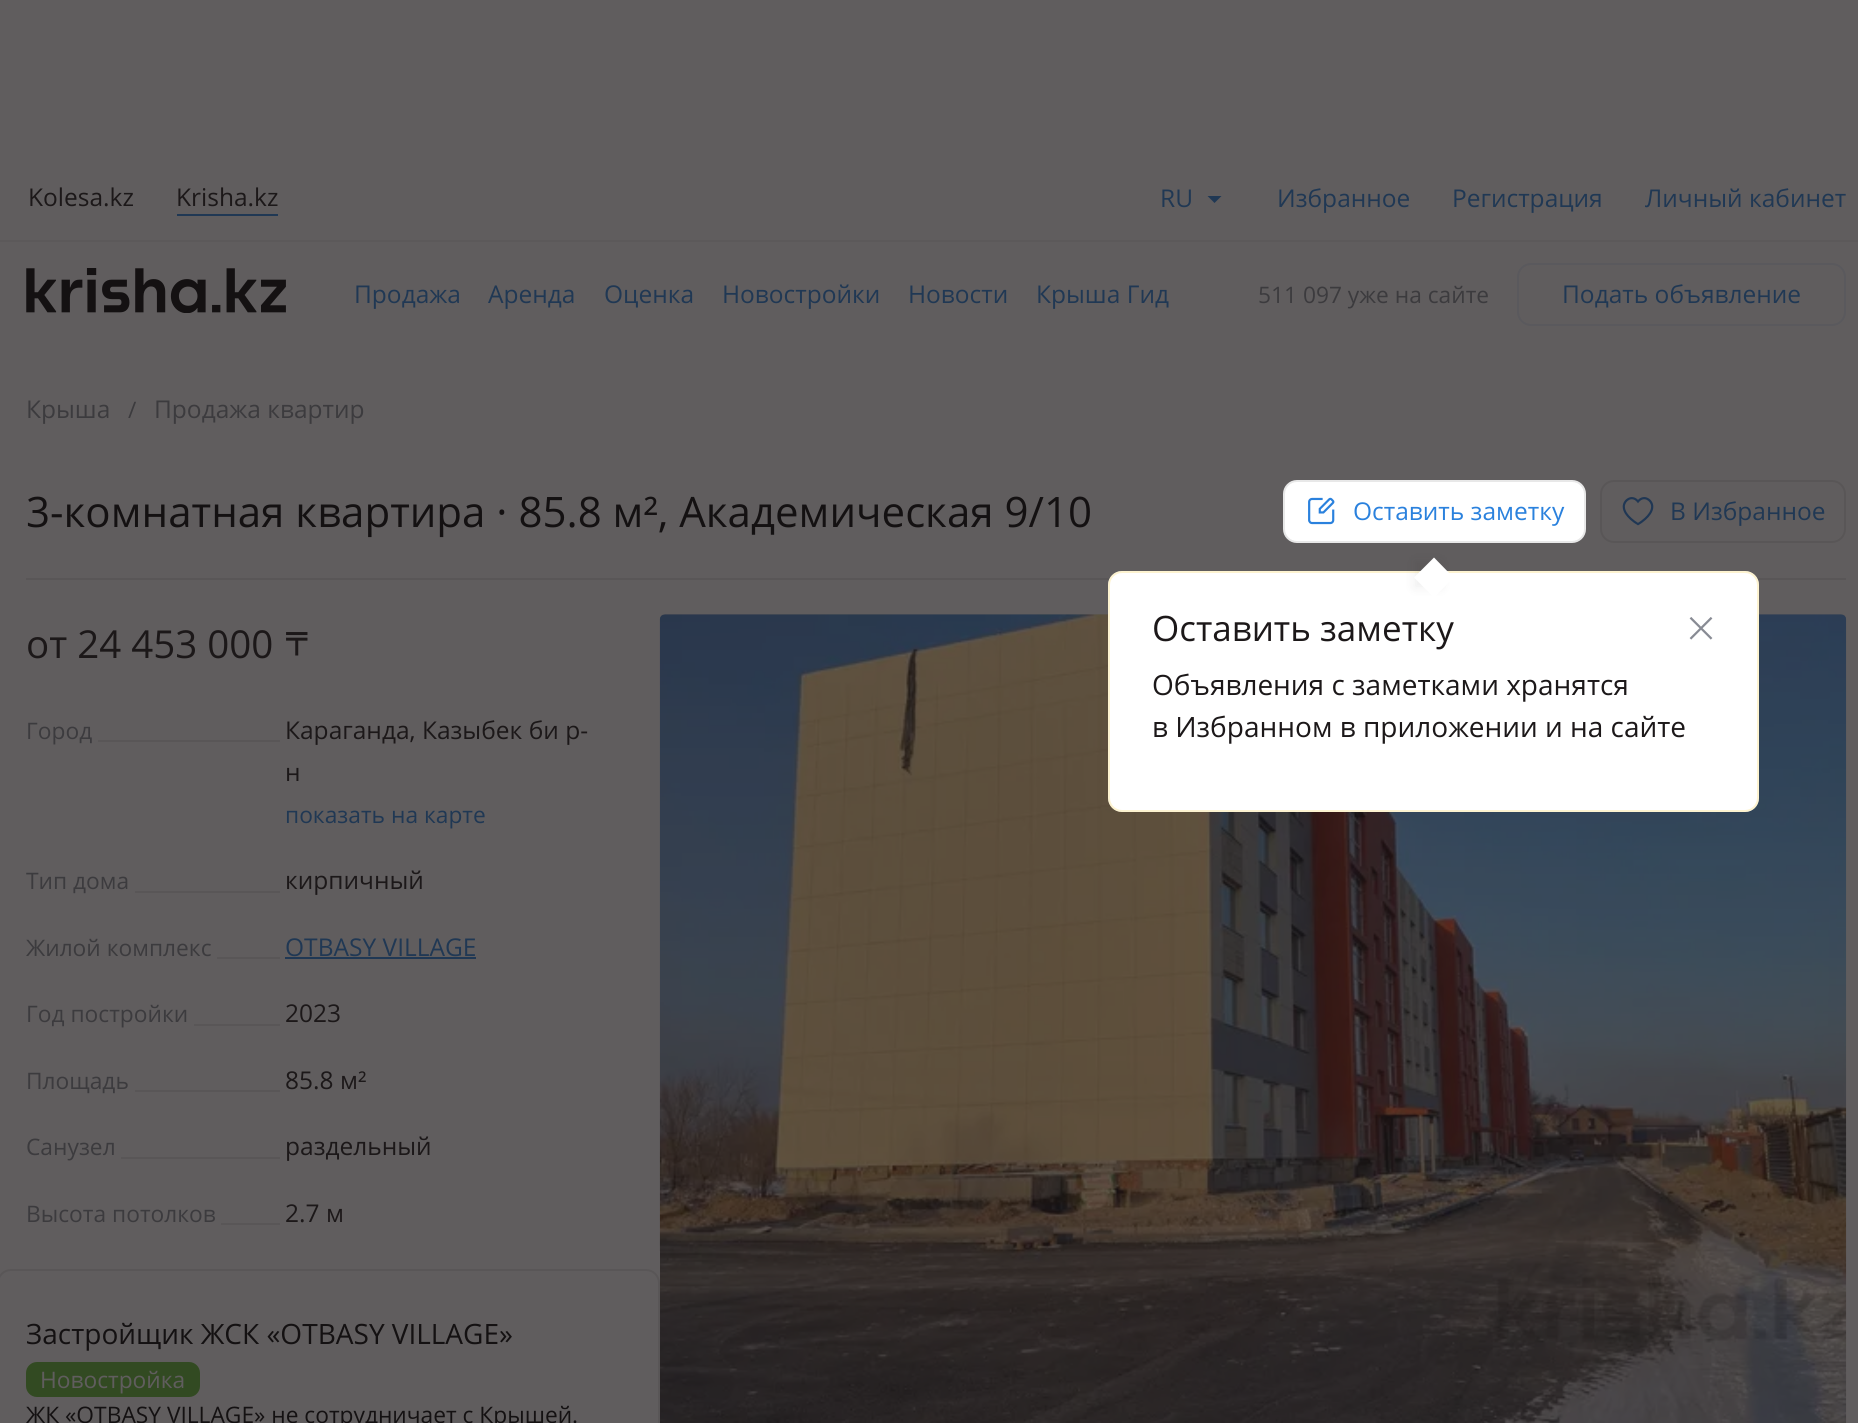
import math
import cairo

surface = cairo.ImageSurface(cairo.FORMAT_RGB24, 1858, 1423)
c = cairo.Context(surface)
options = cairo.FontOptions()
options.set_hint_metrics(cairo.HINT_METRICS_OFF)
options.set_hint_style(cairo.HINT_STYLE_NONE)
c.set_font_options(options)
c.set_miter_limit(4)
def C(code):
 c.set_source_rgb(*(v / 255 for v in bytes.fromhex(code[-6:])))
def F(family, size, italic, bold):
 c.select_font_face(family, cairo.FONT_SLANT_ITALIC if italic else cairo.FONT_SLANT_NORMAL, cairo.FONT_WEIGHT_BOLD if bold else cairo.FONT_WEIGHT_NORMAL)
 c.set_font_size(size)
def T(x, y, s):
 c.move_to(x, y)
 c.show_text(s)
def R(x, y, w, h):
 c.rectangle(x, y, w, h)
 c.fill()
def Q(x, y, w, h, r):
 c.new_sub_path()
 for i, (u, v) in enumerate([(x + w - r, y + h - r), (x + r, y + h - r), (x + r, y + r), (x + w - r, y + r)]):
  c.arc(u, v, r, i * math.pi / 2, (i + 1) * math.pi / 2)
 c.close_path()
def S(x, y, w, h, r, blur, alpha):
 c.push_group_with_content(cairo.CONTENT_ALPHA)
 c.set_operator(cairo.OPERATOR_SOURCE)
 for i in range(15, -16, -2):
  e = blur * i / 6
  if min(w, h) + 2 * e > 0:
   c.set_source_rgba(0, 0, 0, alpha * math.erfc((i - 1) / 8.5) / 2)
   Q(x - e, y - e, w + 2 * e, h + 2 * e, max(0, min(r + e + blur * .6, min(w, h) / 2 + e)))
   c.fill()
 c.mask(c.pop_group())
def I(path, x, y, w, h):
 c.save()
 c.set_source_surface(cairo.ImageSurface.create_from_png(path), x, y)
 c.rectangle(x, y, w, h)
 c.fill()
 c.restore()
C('605d5e')
c.paint()
C('5c595a')
R(0,240,1858,2)
F('Open Sans',24.5,0,0)
C('1c1819')
T(28,206,'Kolesa.kz')
T(176,206,'Krisha.kz')
C('203854')
R(177,214,101,2)
T(1160,207,'RU')
c.new_path()
c.move_to(1207.5,196)
c.line_to(1221.5,196)
c.line_to(1214.5,203)
c.close_path()
c.fill()
T(1277,207,'Избранное')
T(1452,207,'Регистрация')
T(1645,207,'Личный кабинет')
I('1.png',26,268,260,45)
T(354,303,'Продажа')
T(488,303,'Аренда')
T(604,303,'Оценка')
T(722,303,'Новостройки')
T(908,303,'Новости')
T(1036,303,'Крыша Гид')
F('Open Sans',22.75,0,0)
C('3c3b3e')
T(1258,303,'511 097 уже на сайте')
Q(1518,264,327,61,13)
c.set_source_rgba(0.125,0.22,0.329,0.1)
c.stroke()
F('Open Sans',24.5,0,0)
C('203854')
T(1562,303,'Подать объявление')
C('3c3b3e')
T(26,418,'Крыша')
F('Open Sans',22.75,0,0)
T(128,418,'/')
F('Open Sans',24.5,0,0)
T(154,418,'Продажа квартир')
C('595657')
R(26,578,1820,2)
F('Open Sans',42,0,0)
C('141112')
T(26,527,'3-комнатная квартира · 85.8 м², Акадeмическая 9/10')
C('ffffff')
Q(1283,480,303,63,14)
c.fill()
Q(1284,481,301,61,13)
c.set_source_rgba(0.11,0.094,0.098,0.1)
c.stroke()
I('2.png',1308,497,27,28)
F('Open Sans',24.5,0,0)
C('2a81dd')
T(1353,520,'Оставить заметку')
C('5c595a')
Q(660,614,1186,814,5)
c.fill()
I('5.png',659,614,1188,809)
C('ffffff')
Q(1108,571,651,241,14)
c.fill()
Q(1109,572,649,239,13)
c.set_source_rgba(0.992,0.91,0.639,0.5)
c.stroke()
C('1c1819')
S(1414,560,28,28,0,5.5,.07)
C('ffffff')
c.new_path()
c.move_to(1434,557.5)
c.line_to(1453.5,577.5)
c.line_to(1434,597.5)
c.line_to(1414,577.5)
c.close_path()
c.fill()
F('Open Sans',35,0,0)
C('1c1819')
T(1152,641,'Оставить заметку')
I('3.png',1689,617,24,23)
F('Open Sans',28,0,0)
T(1152,695,'Объявления с заметками хранятся')
T(1152,737,'в Избранном в приложении и на сайте')
Q(1601,481,244,61,13)
C('595657')
c.stroke()
I('4.png',1622,497,32,29)
F('Open Sans',24.5,0,0)
C('203854')
T(1670,520,'В Избранное')
F('Open Sans',38.5,0,0)
C('1c1819')
T(26,658,'от 24 453 000')
F('WenQuanYi Zen Hei',32,0,1)
T(284,655,'〒')
F('Open Sans',22.75,0,0)
C('3c3b3e')
T(26,739,'Город')
C('595657')
R(98,740,182,2)
F('Open Sans',24.5,0,0)
C('1c1819')
T(285,739,'Караганда, Казыбек би р-')
T(285,781,'н')
F('Open Sans',22.75,0,0)
C('203854')
T(285,823,'показать на карте')
C('3c3b3e')
T(26,889,'Тип дома')
C('595657')
R(135,891,145,2)
F('Open Sans',24.5,0,0)
C('1c1819')
T(285,889,'кирпичный')
F('Open Sans',22.75,0,0)
C('3c3b3e')
T(26,956,'Жилой комплекс')
F('Open Sans',24.5,0,0)
C('203854')
T(285,956,'OTBASY VILLAGE')
R(285,957,191,2)
C('595657')
R(217,957,63,2)
F('Open Sans',22.75,0,0)
C('3c3b3e')
T(26,1022,'Год постройки')
F('Open Sans',24.5,0,0)
C('1c1819')
T(285,1022,'2023')
C('595657')
R(194,1024,86,2)
F('Open Sans',22.75,0,0)
C('3c3b3e')
T(26,1089,'Площадь')
C('595657')
R(135,1090,145,2)
F('Open Sans',24.5,0,0)
C('1c1819')
T(285,1089,'85.8 м²')
F('Open Sans',22.75,0,0)
C('3c3b3e')
T(26,1155,'Санузел')
C('595657')
R(121,1157,159,2)
F('Open Sans',24.5,0,0)
C('1c1819')
T(285,1155,'раздельный')
F('Open Sans',22.75,0,0)
C('3c3b3e')
T(26,1222,'Высота потолков')
F('Open Sans',24.5,0,0)
C('1c1819')
T(285,1222,'2.7 м')
C('595657')
R(221,1223,59,2)
gradient = cairo.LinearGradient(328,1269,328,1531)
gradient.add_color_stop_rgba(.89,0.376,0.365,0.369,1)
gradient.add_color_stop_rgba(1,0.376,0.365,0.369,0)
c.set_source(gradient)
R(659,1269,1,154)
C('605d5e')
R(659,1251,1,18)
Q(-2,1270,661,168,13)
C('595657')
c.stroke()
F('Open Sans',28,0,0)
C('141112')
T(26,1344,'Застройщик ЖСК «OTBASY VILLAGE»')
C('324a22')
Q(26,1362,174,35,11)
c.fill()
F('Open Sans',22.75,0,0)
C('605d5e')
T(40,1388,'Новостройка')
C('141112')
T(26,1423,'ЖК «OTBASY VILLAGE» не сотрудничает с Крышей.')
surface.write_to_png('o.png')
